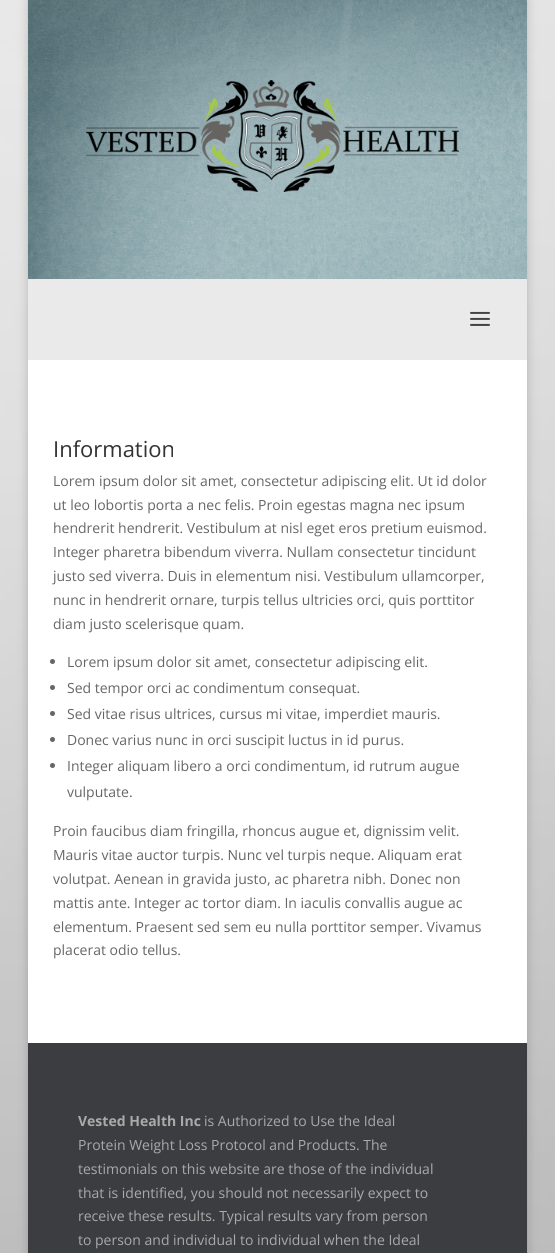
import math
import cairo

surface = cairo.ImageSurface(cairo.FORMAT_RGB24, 555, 1253)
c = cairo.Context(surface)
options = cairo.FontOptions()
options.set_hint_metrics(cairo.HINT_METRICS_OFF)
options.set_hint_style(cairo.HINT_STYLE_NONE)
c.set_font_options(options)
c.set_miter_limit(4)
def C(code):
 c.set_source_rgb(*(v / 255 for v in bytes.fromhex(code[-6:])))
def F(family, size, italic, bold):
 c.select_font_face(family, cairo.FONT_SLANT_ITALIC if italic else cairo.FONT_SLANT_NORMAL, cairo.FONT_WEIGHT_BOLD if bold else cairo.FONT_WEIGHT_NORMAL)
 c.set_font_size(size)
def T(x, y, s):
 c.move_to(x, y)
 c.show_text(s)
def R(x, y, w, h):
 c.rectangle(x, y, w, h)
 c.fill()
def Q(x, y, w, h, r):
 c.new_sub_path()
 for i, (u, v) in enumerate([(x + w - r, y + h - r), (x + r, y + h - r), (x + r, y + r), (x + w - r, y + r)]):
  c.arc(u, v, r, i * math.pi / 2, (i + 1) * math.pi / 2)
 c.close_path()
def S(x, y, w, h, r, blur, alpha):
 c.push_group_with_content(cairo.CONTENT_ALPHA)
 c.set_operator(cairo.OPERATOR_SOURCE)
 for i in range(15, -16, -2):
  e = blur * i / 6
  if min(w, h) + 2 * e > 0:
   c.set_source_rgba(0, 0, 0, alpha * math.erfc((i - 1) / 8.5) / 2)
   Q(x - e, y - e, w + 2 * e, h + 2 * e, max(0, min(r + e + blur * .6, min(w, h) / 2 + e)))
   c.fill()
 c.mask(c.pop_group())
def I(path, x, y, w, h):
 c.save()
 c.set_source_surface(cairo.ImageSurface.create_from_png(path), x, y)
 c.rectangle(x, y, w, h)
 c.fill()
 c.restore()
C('ffffff')
c.paint()
I('1.png',0,0,555,1253)
C('000000')
S(28,0,499,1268,0,5,.2)
I('2.png',28,0,499,279)
I('3.png',86,80,373,112)
C('eaeaea')
R(28,279,499,81)
I('4.png',470,311,20,15)
C('ffffff')
R(28,360,499,683)
F('Open Sans',22,0,0)
C('333333')
T(53,457,'Information')
F('Open Sans',14,0,0)
C('666666')
T(53,486,'Lorem ipsum dolor sit amet, consectetur adipiscing elit. Ut id dolor')
T(53,510,'ut leo lobortis porta a nec felis. Proin egestas magna nec ipsum')
T(53,533,'hendrerit hendrerit. Vestibulum at nisl eget eros pretium euismod.')
T(53,557,'Integer pharetra bibendum viverra. Nullam consectetur tincidunt')
T(53,581,'justo sed viverra. Duis in elementum nisi. Vestibulum ullamcorper,')
T(53,605,'nunc in hendrerit ornare, turpis tellus ultricies orci, quis porttitor')
T(53,629,'diam justo scelerisque quam.')
c.new_path()
c.arc(52.5,661.5,2.5,0,2 * math.pi)
c.fill()
T(67,667,'Lorem ipsum dolor sit amet, consectetur adipiscing elit.')
c.new_path()
c.arc(52.5,687.5,2.5,0,2 * math.pi)
c.fill()
T(67,693,'Sed tempor orci ac condimentum consequat.')
c.new_path()
c.arc(52.5,713.5,2.5,0,2 * math.pi)
c.fill()
T(67,719,'Sed vitae risus ultrices, cursus mi vitae, imperdiet mauris.')
c.new_path()
c.arc(52.5,739.5,2.5,0,2 * math.pi)
c.fill()
T(67,745,'Donec varius nunc in orci suscipit luctus in id purus.')
c.new_path()
c.arc(52.5,765.5,2.5,0,2 * math.pi)
c.fill()
T(67,771,'Integer aliquam libero a orci condimentum, id rutrum augue')
T(67,797,'vulputate.')
T(53,836,'Proin faucibus diam fringilla, rhoncus augue et, dignissim velit.')
T(53,860,'Mauris vitae auctor turpis. Nunc vel turpis neque. Aliquam erat')
T(53,884,'volutpat. Aenean in gravida justo, ac pharetra nibh. Donec non')
T(53,908,'mattis ante. Integer ac tortor diam. In iaculis convallis augue ac')
T(53,932,'elementum. Praesent sed sem eu nulla porttitor semper. Vivamus')
T(53,955,'placerat odio tellus.')
C('3c3d41')
R(28,1043,499,210)
F('Open Sans',14,0,1)
C('aaaaaa')
T(78,1126,'Vested Health Inc')
F('Open Sans',14,0,0)
T(204,1126,'is Authorized to Use the Ideal')
T(78,1150,'Protein Weight Loss Protocol and Products. The')
T(78,1174,'testimonials on this website are those of the individual')
T(78,1198,'that is identified, you should not necessarily expect to')
T(78,1221,'receive these results. Typical results vary from person')
T(78,1245,'to person and individual to individual when the Ideal')
surface.write_to_png('o.png')
